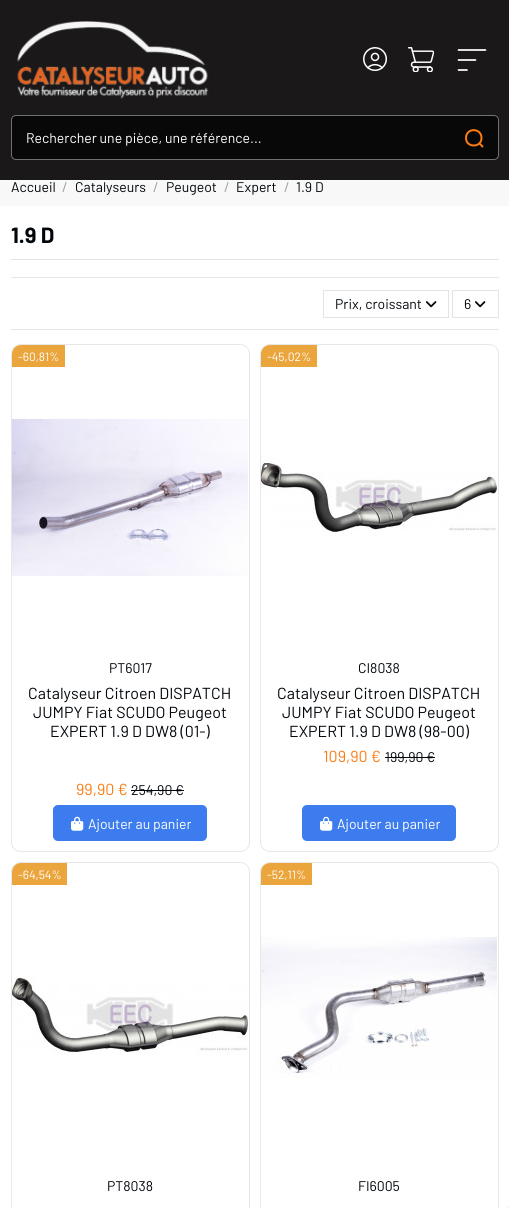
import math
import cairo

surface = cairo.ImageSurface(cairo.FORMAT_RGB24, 509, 1208)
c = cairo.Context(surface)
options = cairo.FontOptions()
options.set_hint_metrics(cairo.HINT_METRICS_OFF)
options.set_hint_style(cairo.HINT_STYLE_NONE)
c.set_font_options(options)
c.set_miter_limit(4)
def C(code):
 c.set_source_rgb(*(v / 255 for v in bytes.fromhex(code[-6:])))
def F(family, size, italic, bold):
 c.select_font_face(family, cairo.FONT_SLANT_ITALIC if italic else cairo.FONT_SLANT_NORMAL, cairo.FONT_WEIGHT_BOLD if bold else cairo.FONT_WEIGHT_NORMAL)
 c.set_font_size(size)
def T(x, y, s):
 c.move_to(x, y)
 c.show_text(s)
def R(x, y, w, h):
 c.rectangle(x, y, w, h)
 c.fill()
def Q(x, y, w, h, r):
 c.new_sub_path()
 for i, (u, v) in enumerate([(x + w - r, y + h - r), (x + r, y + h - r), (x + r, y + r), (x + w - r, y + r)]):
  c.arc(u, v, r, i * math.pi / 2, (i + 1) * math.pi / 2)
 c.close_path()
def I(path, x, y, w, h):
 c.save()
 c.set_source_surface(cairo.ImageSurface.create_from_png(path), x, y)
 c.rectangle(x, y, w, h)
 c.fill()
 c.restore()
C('ffffff')
c.paint()
C('1a1819')
R(0,0,509,180)
I('1.png',17,21,192,78)
I('2.png',363,47,24,24)
I('3.png',408,47,26,25)
c.new_path()
c.move_to(458.5,50)
c.line_to(485.5,50)
c.move_to(458.5,60)
c.line_to(475.5,60)
c.move_to(458.5,70)
c.line_to(467,70)
C('ffffff')
c.set_line_width(1.7)
c.set_line_cap(cairo.LINE_CAP_ROUND)
c.set_line_join(cairo.LINE_JOIN_ROUND)
c.stroke()
C('080808')
Q(11.5,115.5,487,44,4.5)
c.fill_preserve()
C('707070')
c.set_line_width(1)
c.set_line_cap(cairo.LINE_CAP_BUTT)
c.set_line_join(cairo.LINE_JOIN_MITER)
c.stroke()
F('Barlow',14,0,0)
C('ffffff')
T(26,143,'Rechercher une pièce, une référence...')
c.new_path()
c.move_to(482.5,146.5)
c.line_to(479.5,143.5)
c.move_to(466,138)
c.curve_to(466,148,481.5,148,481.5,138)
c.curve_to(481.5,127.5,466,127.5,466,138)
C('fb7b12')
c.set_line_width(2)
c.set_line_cap(cairo.LINE_CAP_ROUND)
c.set_line_join(cairo.LINE_JOIN_ROUND)
c.stroke()
C('f8f8f8')
R(0,180,509,26)
C('01060b')
T(11,192,'Accueil')
C('959799')
T(62,192,'/')
C('01060b')
T(75,192,'Catalyseurs')
C('959799')
T(153,192,'/')
C('01060b')
T(166,192,'Peugeot')
C('959799')
T(224,192,'/')
C('01060b')
T(236,192,'Expert')
C('959799')
T(284,192,'/')
C('01060b')
T(296,192,'1.9 D')
C('e3e3e3')
R(11,259,488,1)
F('Barlow',22,0,1)
C('01060b')
T(11,243,'1.9 D')
C('e7e7e7')
R(11,277,488,1)
R(11,329,488,1)
c.rectangle(323.5,290.5,125,27)
C('e3e3e3')
c.set_line_width(1)
c.set_line_cap(cairo.LINE_CAP_BUTT)
c.set_line_join(cairo.LINE_JOIN_MITER)
c.stroke()
F('Barlow',14,0,0)
C('01060b')
T(335,309,'Prix, croissant')
I('4.png',426,301,11,7)
c.rectangle(452.5,290.5,46,27)
C('e3e3e3')
c.stroke()
C('01060b')
T(464,309,'6')
I('4.png',475,301,11,7)
Q(11.5,344.5,238,507,9.5)
C('e7e7e7')
c.stroke()
I('5.png',12,345,236,231)
C('eba53d')
c.new_path()
c.move_to(21,345)
c.line_to(65,345)
c.line_to(65,367)
c.line_to(12,367)
c.line_to(12,354)
c.curve_to(12,349,16,345,21,345)
c.close_path()
c.fill()
F('Barlow',12,0,0)
C('ffffff')
T(18,361,'-60,81%')
F('Barlow',14,0,0)
C('01060b')
T(109,673,'PT6017')
F('Barlow',16,0,0)
T(28,699,'Catalyseur Citroen DISPATCH')
T(33,718,'JUMPY Fiat SCUDO Peugeot')
T(50,737,'EXPERT 1.9 D DW8 (01-)')
C('fb7b12')
T(76,795,'99,90 €')
F('Barlow',14,0,0)
C('01060b')
T(131,795,'254,90 €')
R(131,790,53,1)
C('3c7cee')
Q(53,805,154,36,5)
c.fill()
I('6.png',71,816,13,15)
C('ffffff')
T(88,829,'Ajouter au panier')
Q(260.5,344.5,238,507,9.5)
C('e7e7e7')
c.stroke()
I('7.png',261,345,236,192)
C('eba53d')
c.new_path()
c.move_to(270,345)
c.line_to(317,345)
c.line_to(317,367)
c.line_to(261,367)
c.line_to(261,354)
c.curve_to(261,349,265,345,270,345)
c.close_path()
c.fill()
F('Barlow',12,0,0)
C('ffffff')
T(267,361,'-45,02%')
F('Barlow',14,0,0)
C('01060b')
T(358,673,'CI8038')
F('Barlow',16,0,0)
T(277,699,'Catalyseur Citroen DISPATCH')
T(282,718,'JUMPY Fiat SCUDO Peugeot')
T(289,737,'EXPERT 1.9 D DW8 (98-00)')
C('fb7b12')
T(323,762,'109,90 €')
F('Barlow',14,0,0)
C('01060b')
T(385,762,'199,90 €')
R(385,757,50,1)
C('3c7cee')
Q(302,805,154,36,5)
c.fill()
I('6.png',320,816,13,15)
C('ffffff')
T(337,829,'Ajouter au panier')
Q(11.5,862.5,238,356,9.5)
C('e7e7e7')
c.stroke()
I('8.png',12,863,236,192)
C('eba53d')
c.new_path()
c.move_to(21,863)
c.line_to(67,863)
c.line_to(67,885)
c.line_to(12,885)
c.line_to(12,872)
c.curve_to(12,867,16,863,21,863)
c.close_path()
c.fill()
F('Barlow',12,0,0)
C('ffffff')
T(18,879,'-64,54%')
F('Barlow',14,0,0)
C('01060b')
T(107,1191,'PT8038')
Q(260.5,862.5,238,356,9.5)
C('e7e7e7')
c.stroke()
I('9.png',261,863,236,215)
C('eba53d')
c.new_path()
c.move_to(270,863)
c.line_to(312,863)
c.line_to(312,885)
c.line_to(261,885)
c.line_to(261,872)
c.curve_to(261,867,265,863,270,863)
c.close_path()
c.fill()
F('Barlow',12,0,0)
C('ffffff')
T(267,879,'-52,11%')
F('Barlow',14,0,0)
C('01060b')
T(358,1191,'FI6005')
C('f5f5f5')
R(507,1206,2,2)
surface.write_to_png('o.png')
